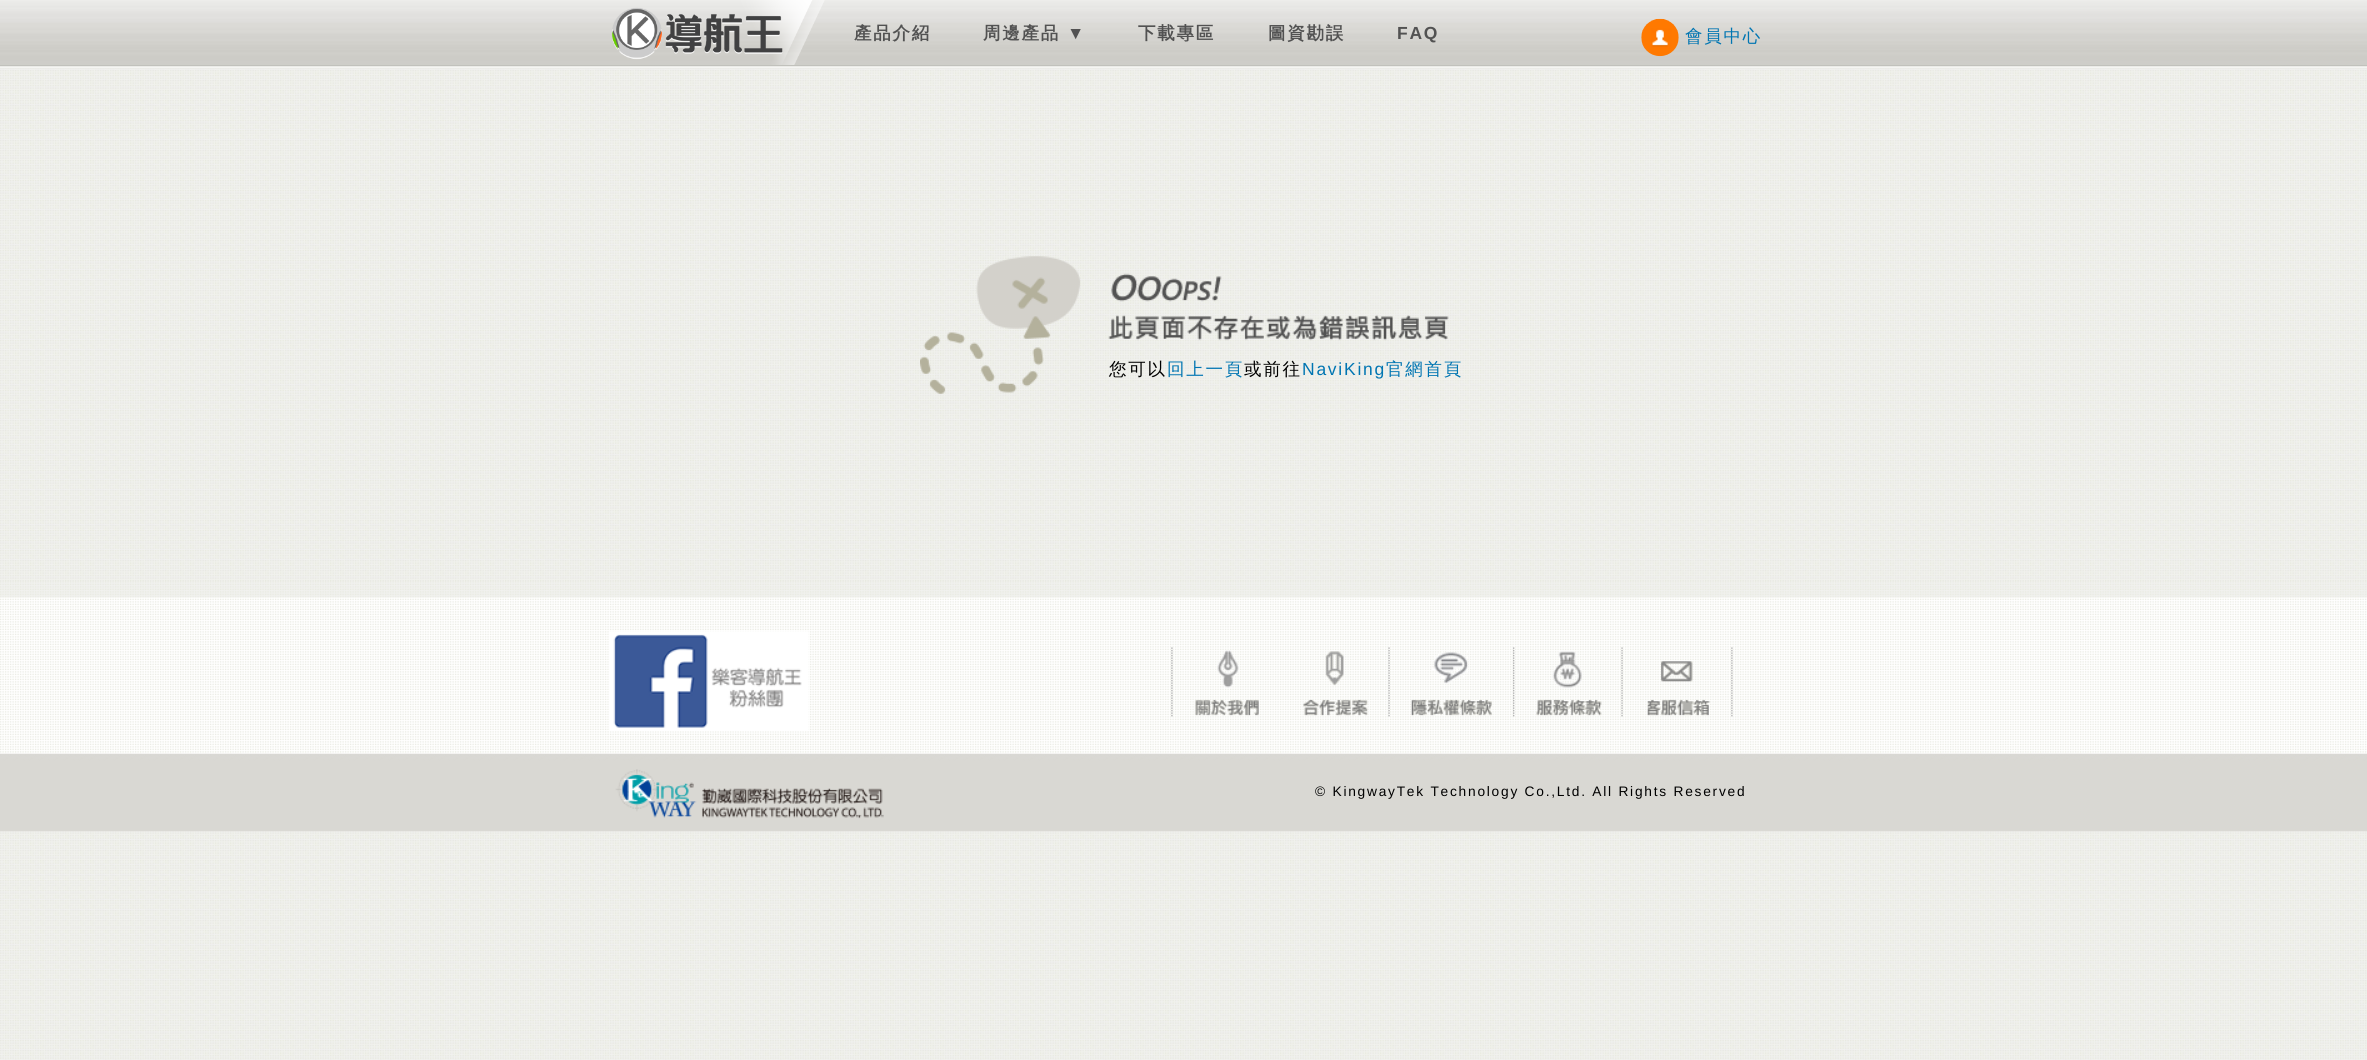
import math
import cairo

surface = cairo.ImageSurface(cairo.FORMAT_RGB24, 2367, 1060)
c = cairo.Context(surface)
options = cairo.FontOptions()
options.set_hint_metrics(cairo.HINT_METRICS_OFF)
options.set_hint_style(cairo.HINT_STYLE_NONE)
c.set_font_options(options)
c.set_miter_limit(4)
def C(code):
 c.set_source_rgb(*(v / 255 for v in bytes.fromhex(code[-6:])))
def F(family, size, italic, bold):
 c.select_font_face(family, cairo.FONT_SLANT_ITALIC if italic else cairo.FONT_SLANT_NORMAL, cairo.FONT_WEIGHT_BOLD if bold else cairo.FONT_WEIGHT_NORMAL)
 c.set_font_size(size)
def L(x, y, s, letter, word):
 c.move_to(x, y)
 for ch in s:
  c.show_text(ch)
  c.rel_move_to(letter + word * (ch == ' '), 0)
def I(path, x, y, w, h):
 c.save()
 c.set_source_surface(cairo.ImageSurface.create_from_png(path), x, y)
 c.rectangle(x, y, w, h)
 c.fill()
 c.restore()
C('ffffff')
c.paint()
I('1.png',0,68,2367,992)
I('2.png',0,0,2367,69)
I('3.png',612,0,213,65)
F('WenQuanYi Zen Hei',17.5,0,1)
C('525252')
L(854,39,'產品介紹',1.75,0)
L(983,39,'周邊產品',1.75,0)
F('Liberation Sans',17.5,0,1)
L(1067,39,'▼',1.75,0)
F('WenQuanYi Zen Hei',17.5,0,1)
L(1138,39,'下載專區',1.75,0)
L(1268,39,'圖資勘誤',1.75,0)
F('Liberation Sans',17.5,0,1)
L(1397,39,'FAQ',1.75,0)
I('4.png',1641,18,38,39)
F('WenQuanYi Zen Hei Medium',17.5,0,0)
C('0075b2')
L(1685,42,'會員中心',1.75,0)
I('5.png',920,256,529,138)
C('000000')
L(1109,375,'您可以',1.75,0)
C('0075b2')
L(1167,375,'回上一頁',1.75,0)
C('000000')
L(1244,375,'或前往',1.75,0)
F('Liberation Sans',17.5,0,0)
C('0075b2')
L(1302,375,'NaviKing',1.75,0)
F('WenQuanYi Zen Hei Medium',17.5,0,0)
L(1386,375,'官網首頁',1.75,0)
I('6.png',0,581,2367,251)
I('7.png',608,631,201,101)
I('8.png',1171,647,88,70)
I('9.png',1303,647,87,70)
I('10.png',1411,647,104,70)
I('11.png',1536,647,87,70)
I('12.png',1647,647,86,70)
I('13.png',615,769,269,50)
F('Liberation Sans',13.75,0,0)
C('000000')
L(1315,796,'© KingwayTek Technology Co.,Ltd. All Rights Reserved',1.75,0)
surface.write_to_png('o.png')
